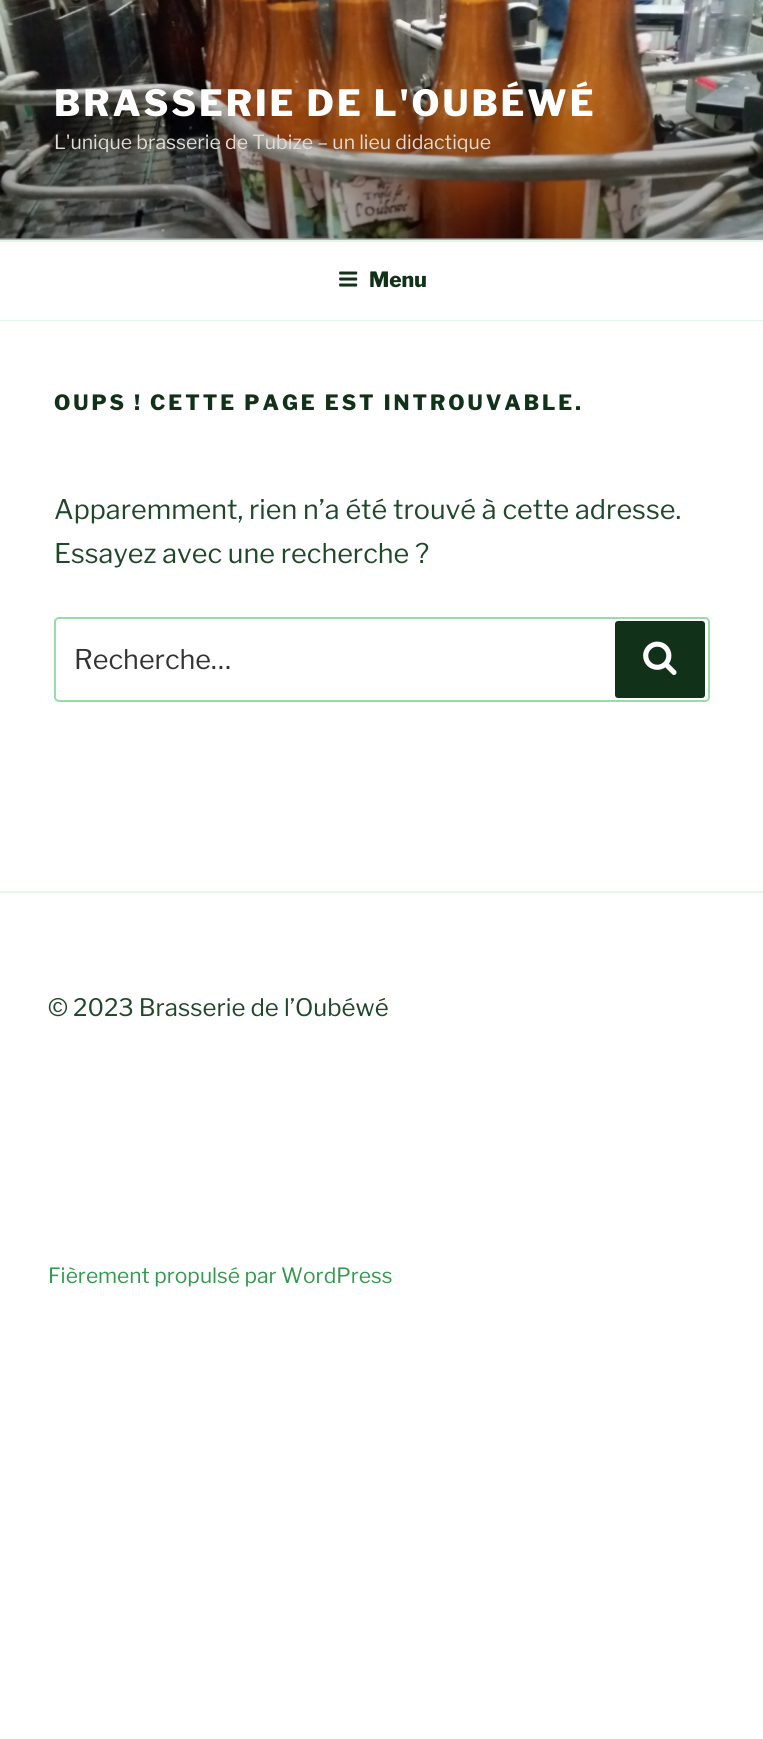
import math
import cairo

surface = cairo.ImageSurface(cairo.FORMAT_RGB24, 763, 1739)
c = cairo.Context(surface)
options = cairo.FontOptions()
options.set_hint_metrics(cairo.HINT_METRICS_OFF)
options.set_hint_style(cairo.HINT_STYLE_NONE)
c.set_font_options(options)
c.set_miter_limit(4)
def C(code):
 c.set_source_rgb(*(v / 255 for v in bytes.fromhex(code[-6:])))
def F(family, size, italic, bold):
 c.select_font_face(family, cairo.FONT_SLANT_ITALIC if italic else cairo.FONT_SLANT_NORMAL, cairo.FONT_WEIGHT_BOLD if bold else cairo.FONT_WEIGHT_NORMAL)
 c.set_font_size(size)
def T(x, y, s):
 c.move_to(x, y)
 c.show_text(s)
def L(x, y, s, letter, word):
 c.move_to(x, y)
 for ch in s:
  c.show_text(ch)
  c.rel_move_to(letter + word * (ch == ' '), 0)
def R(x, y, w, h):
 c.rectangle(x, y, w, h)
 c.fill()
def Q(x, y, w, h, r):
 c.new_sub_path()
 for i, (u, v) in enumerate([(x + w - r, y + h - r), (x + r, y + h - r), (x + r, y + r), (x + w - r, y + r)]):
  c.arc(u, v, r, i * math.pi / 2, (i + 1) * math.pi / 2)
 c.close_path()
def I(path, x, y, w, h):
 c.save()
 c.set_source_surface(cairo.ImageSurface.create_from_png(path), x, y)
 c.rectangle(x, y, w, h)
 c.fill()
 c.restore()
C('ffffff')
c.paint()
C('f7fcf9')
R(0,238,763,2)
I('1.png',0,0,763,239)
gradient = cairo.LinearGradient(382,0,382,240)
gradient.add_color_stop_rgba(0,0,0,0,0)
gradient.add_color_stop_rgba(.75,0,0,0,.3)
gradient.add_color_stop_rgba(1,0,0,0,.3)
c.set_source(gradient)
R(0,13,763,227)
F('Libre Franklin Thin',36,0,0)
C('ffffff')
L(54,116,'BRASSERIE DE L\'OUBÉWÉ',2.9,0)
F('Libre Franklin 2 Thin',19.5,0,0)
C('e1dbd6')
T(54,149,'L\'unique brasserie de Tubize – un lieu didactique')
C('e4f6e9')
R(0,240,763,2)
R(0,320,763,1)
I('2.png',339,271,19,16)
F('Libre Franklin Thin',21,0,0)
C('113219')
T(369,287,'Menu')
L(54,410,'OUPS ! CETTE PAGE EST INTROUVABLE.',2.95,0)
F('Libre Franklin 2 Thin',27,0,0)
C('1f4729')
T(54,519,'Apparemment, rien n’a été trouvé à cette adresse.')
T(54,563,'Essayez avec une recherche ?')
Q(55,618,654,83,4)
C('98dda9')
c.stroke()
C('333333')
T(74,669,'Recherche…')
C('113219')
Q(615,621,90,77,3)
c.fill()
I('3.png',643,641,34,34)
C('e4f6e9')
R(0,891,763,2)
F('Libre Franklin 2 Thin',24,0,0)
C('1f4729')
T(48,1016,'© 2023 Brasserie de l’Oubéwé')
F('Libre Franklin 2 Thin',21,0,0)
C('33994d')
T(48,1283,'Fièrement propulsé par WordPress')
surface.write_to_png('o.png')
